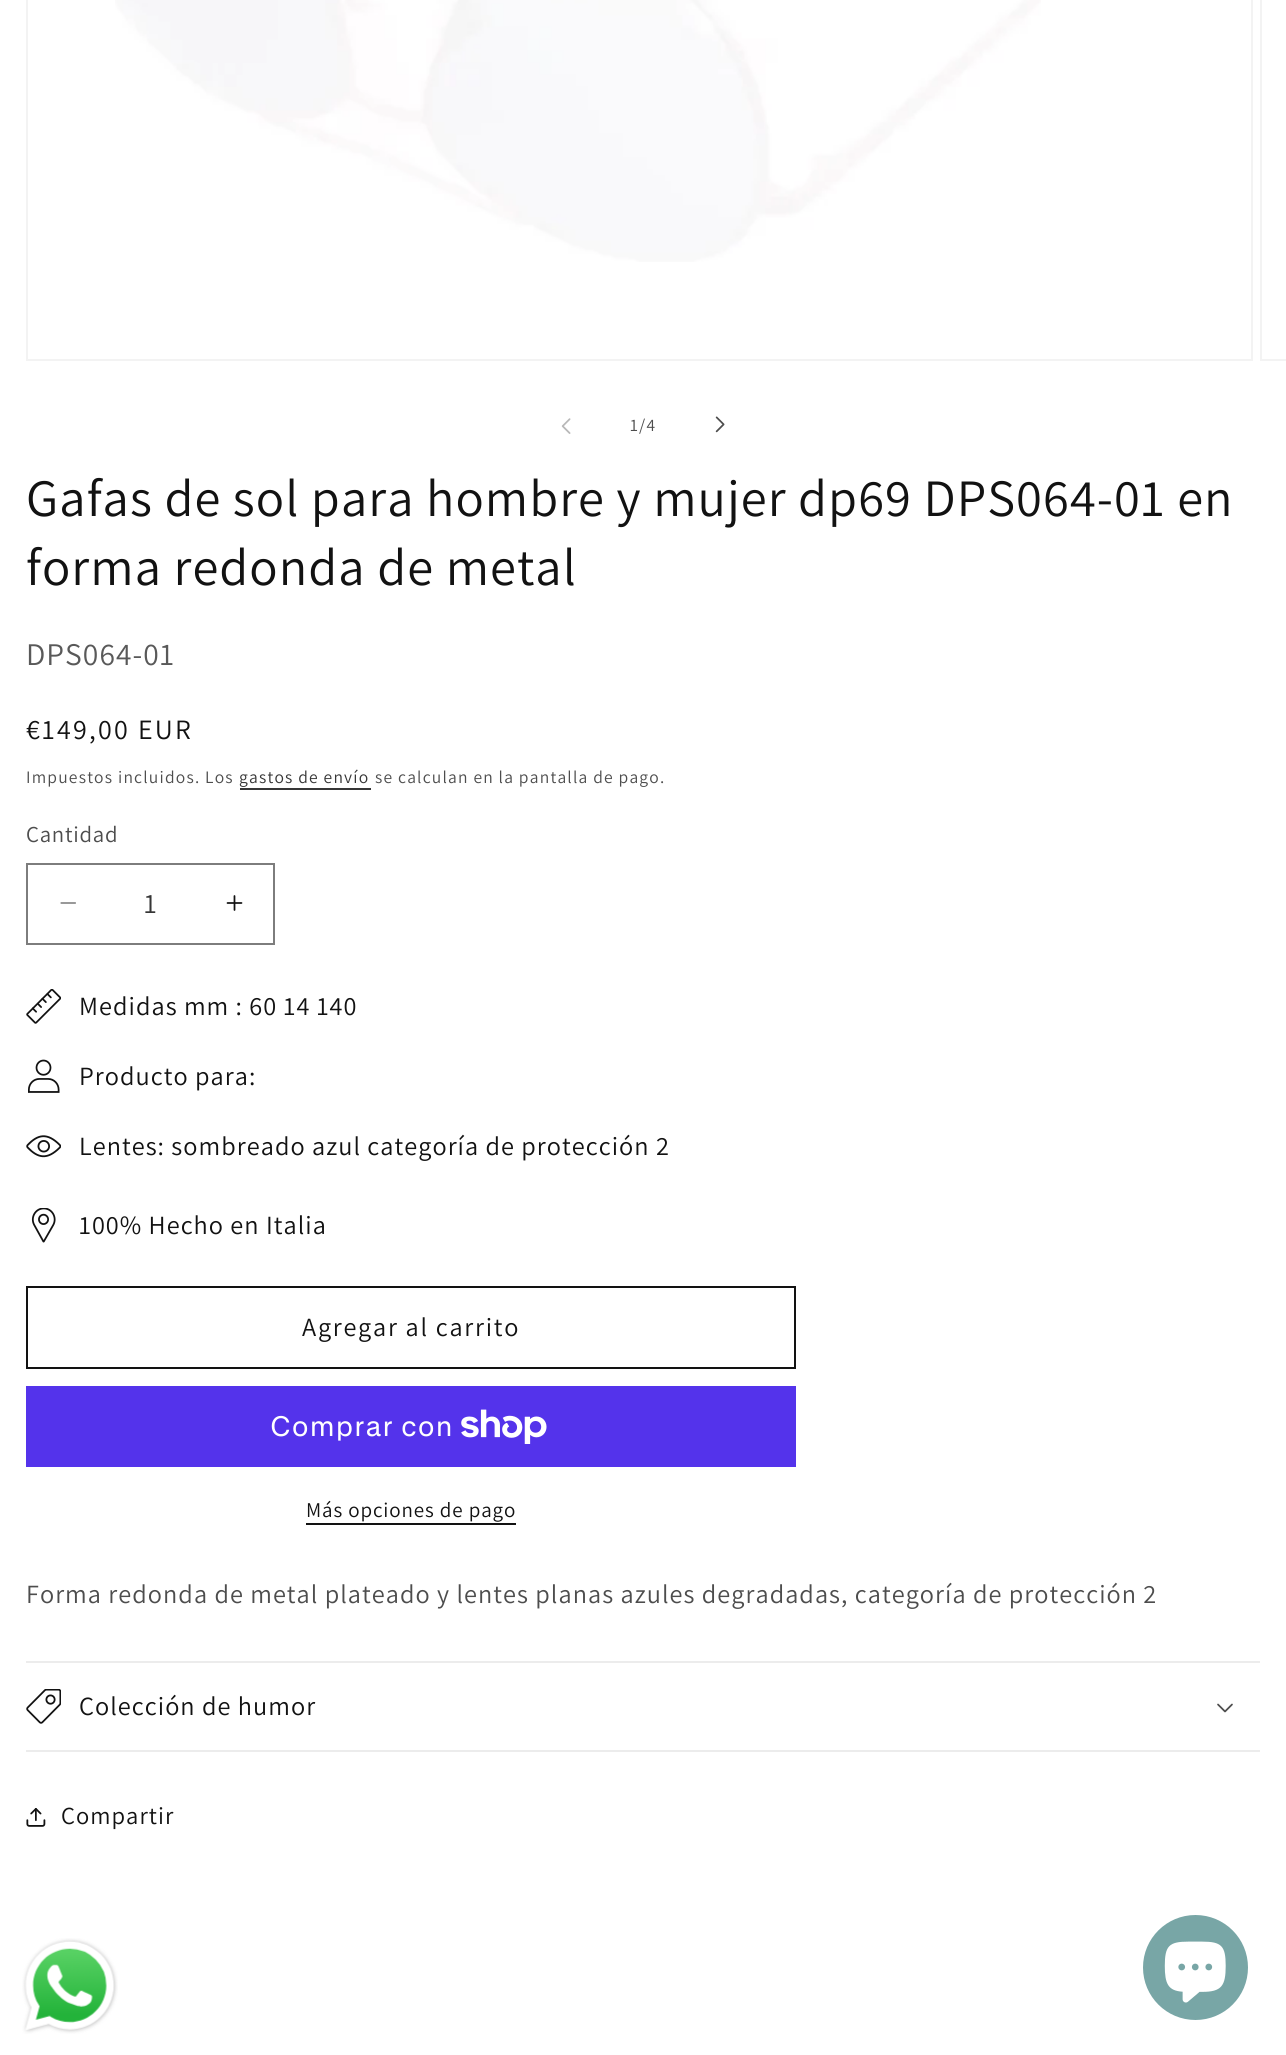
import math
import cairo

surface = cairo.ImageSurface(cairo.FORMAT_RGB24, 1286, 2055)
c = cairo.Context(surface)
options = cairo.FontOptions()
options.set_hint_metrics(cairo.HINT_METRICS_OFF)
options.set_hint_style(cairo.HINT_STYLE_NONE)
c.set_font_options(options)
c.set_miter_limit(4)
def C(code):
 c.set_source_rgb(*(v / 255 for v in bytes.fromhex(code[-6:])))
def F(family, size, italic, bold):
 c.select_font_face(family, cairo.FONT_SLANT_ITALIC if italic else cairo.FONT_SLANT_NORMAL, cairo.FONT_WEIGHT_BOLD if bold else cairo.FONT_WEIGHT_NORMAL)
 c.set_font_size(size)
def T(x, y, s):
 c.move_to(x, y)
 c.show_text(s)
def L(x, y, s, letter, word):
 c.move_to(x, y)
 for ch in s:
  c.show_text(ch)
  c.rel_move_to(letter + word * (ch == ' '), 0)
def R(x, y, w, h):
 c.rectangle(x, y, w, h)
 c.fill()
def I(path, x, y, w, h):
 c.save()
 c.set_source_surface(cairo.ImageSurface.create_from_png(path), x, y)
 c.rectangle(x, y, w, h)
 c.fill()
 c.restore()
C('ffffff')
c.paint()
c.rectangle(27,-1,1225,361)
C('f3f3f3')
c.stroke()
I('1.png',115,0,926,262)
c.rectangle(1261,-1,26,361)
c.stroke()
I('2.png',561,418,10,16)
F('Assistant',17.5,0,0)
C('4d4d4d')
L(630,431,'1/4',1.2,0)
I('3.png',715,416,10,17)
F('Assistant',52.5,0,0)
C('121212')
L(26,516,'Gafas de sol para hombre y mujer dp69 DPS064-01 en',1.05,0)
L(26,585,'forma redonda de metal',1.05,0)
F('Assistant',31.5,0,0)
C('595959')
L(26,665,'DPS064-01',1.05,0)
F('Assistant',28,0,0)
C('121212')
L(26,739,'€149,00 EUR',2.25,0)
F('Assistant',17.5,0,0)
C('4d4d4d')
L(26,783,'Impuestos incluidos. Los',1.2,0)
C('363636')
L(239,783,'gastos de envío',1.2,0)
R(240,788,131,2)
C('4d4d4d')
L(375,783,'se calculan en la pantalla de pago.',1.2,0)
F('Assistant',22.75,0,0)
L(26,842,'Cantidad',.75,0)
I('4.png',60,902,16,2)
I('5.png',226,895,17,16)
c.rectangle(27,864,247,80)
C('7d7d7d')
c.stroke()
F('Assistant',28,0,0)
C('363636')
T(144,913,'1')
I('6.png',26,989,35,35)
F('Assistant',26.25,0,0)
C('121212')
L(79,1015,'Medidas mm : 60 14 140',1.05,0)
I('7.png',28,1059,32,34)
L(79,1085,'Producto para:',1.05,0)
I('8.png',26,1135,35,23)
L(79,1155,'Lentes: sombreado azul categoría de protección 2',1.05,0)
I('9.png',31,1208,25,35)
L(79,1234,'100% Hecho en Italia',1.05,0)
c.rectangle(27,1287,768,81)
c.stroke()
L(302,1336,'Agregar al carrito',1.75,0)
C('5433eb')
R(26,1386,770,81)
F('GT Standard',28,0,0)
C('ffffff')
L(270,1436,'Comprar con',1.05,0)
I('10.png',461,1409,86,35)
F('Assistant',21,0,0)
C('121212')
L(306,1517,'Más opciones de pago',.9,0)
R(306,1523,210,2)
F('Assistant',26.25,0,0)
C('4d4d4d')
L(26,1603,'Forma redonda de metal plateado y lentes planas azules degradadas, categoría de protección 2',1.05,0)
C('ececec')
R(26,1661,1234,2)
R(26,1750,1234,2)
I('11.png',26,1689,35,35)
C('121212')
L(79,1715,'Colección de humor',1.05,0)
I('12.png',1217,1703,16,10)
I('13.png',26,1808,20,19)
F('Assistant',24.5,0,0)
L(61,1824,'Compartir',1.05,0)
I('14.png',22,1938,96,96)
C('78a6a6')
c.arc(1195.5,1967.5,52.5,0,2 * math.pi)
c.fill()
I('15.png',1164,1941,62,62)
surface.write_to_png('o.png')
